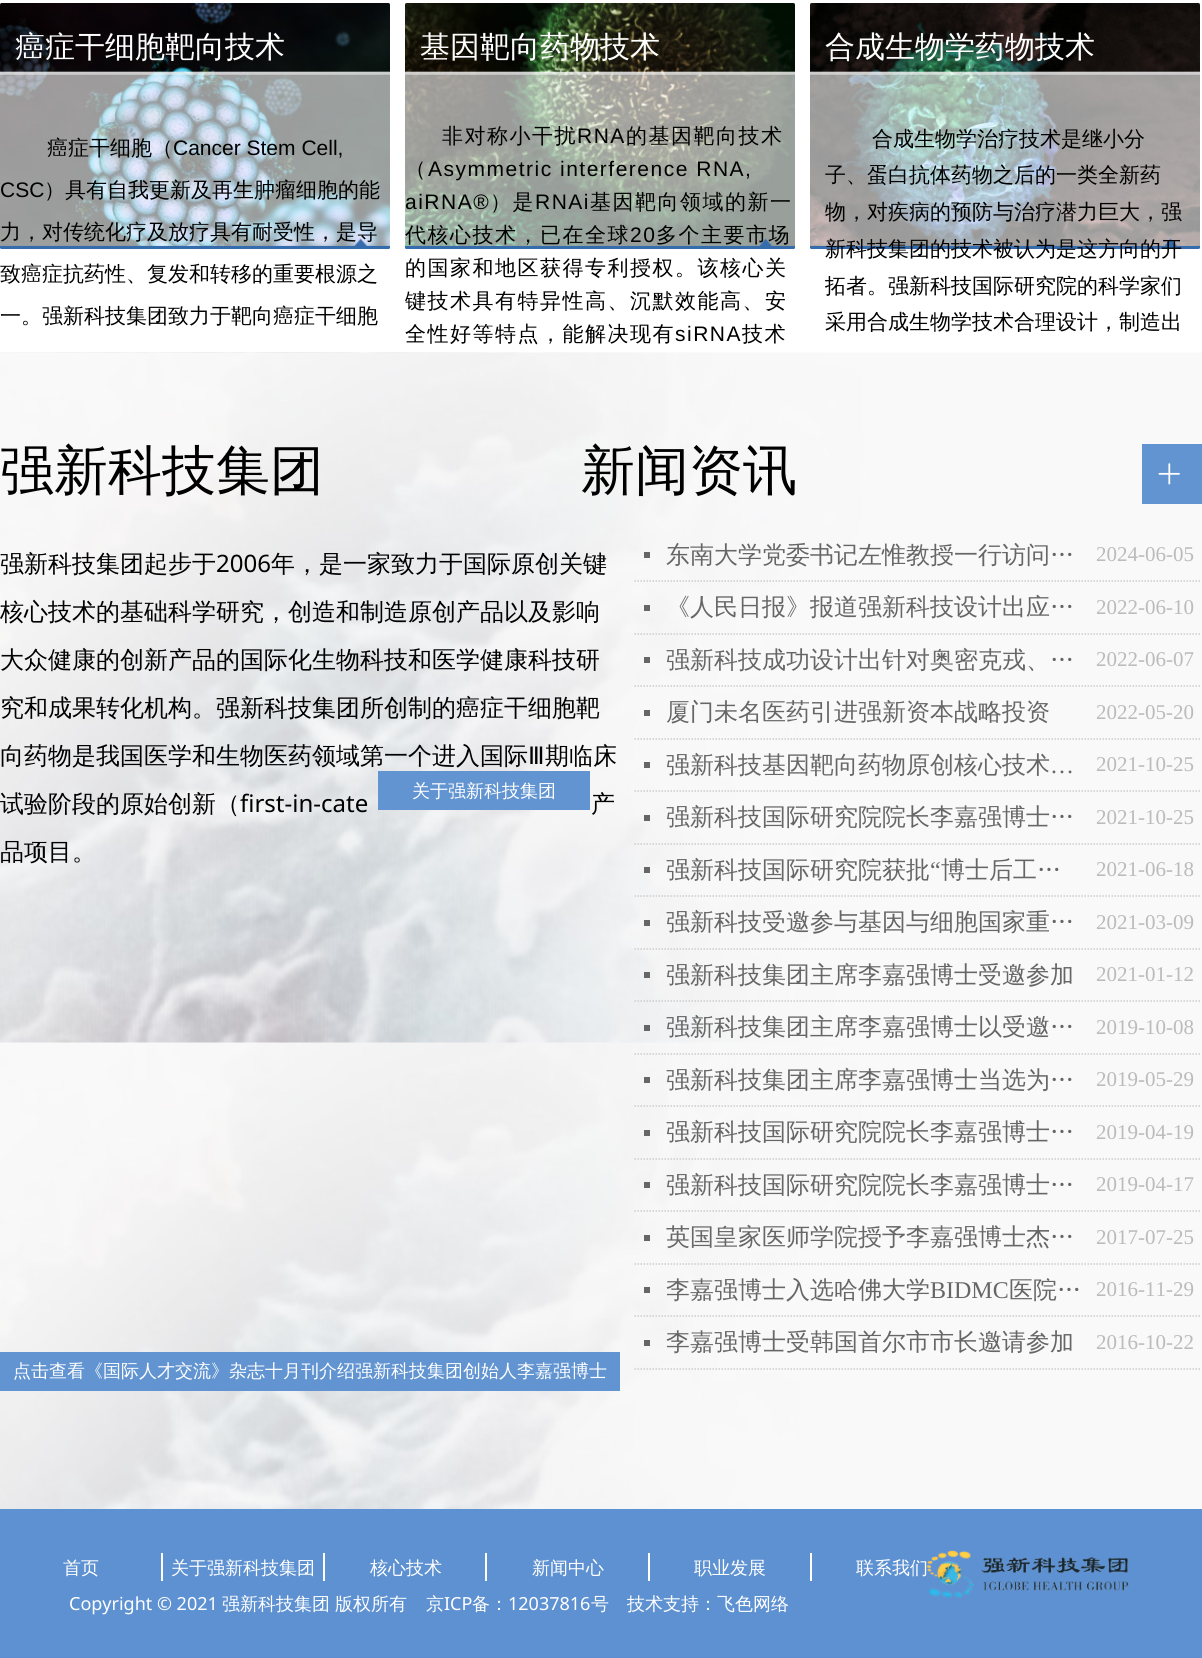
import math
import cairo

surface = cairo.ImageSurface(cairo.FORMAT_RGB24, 1202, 1658)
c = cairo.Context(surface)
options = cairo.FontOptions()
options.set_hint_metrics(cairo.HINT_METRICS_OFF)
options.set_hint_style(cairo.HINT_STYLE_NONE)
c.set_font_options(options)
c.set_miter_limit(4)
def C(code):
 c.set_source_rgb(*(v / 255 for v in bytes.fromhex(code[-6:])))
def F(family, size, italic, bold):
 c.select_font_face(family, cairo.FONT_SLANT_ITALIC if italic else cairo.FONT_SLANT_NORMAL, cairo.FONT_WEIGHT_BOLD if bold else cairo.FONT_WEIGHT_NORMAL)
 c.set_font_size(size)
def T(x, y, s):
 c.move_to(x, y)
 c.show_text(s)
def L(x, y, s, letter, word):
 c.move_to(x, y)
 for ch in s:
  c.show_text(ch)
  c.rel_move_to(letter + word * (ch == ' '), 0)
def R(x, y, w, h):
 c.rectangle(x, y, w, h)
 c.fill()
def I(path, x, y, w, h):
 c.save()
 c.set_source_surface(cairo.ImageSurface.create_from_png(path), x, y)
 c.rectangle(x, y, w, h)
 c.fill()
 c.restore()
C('ffffff')
c.paint()
I('1.png',0,3,390,246)
I('2.png',405,3,390,246)
I('3.png',810,3,390,246)
F('WenQuanYi Zen Hei Medium',30,0,0)
C('ffffff')
T(15,57,'癌症干细胞靶向技术')
T(420,57,'基因靶向药物技术')
T(825,57,'合成生物学药物技术')
F('WenQuanYi Zen Hei Medium',21,0,0)
C('000000')
T(47,155,'癌症干细胞（')
F('Liberation Sans',21,0,0)
T(173,155,'Cancer Stem Cell,')
T(0,197,'CSC')
F('WenQuanYi Zen Hei Medium',21,0,0)
T(44,197,'）具有自我更新及再生肿瘤细胞的能')
T(0,239,'力，对传统化疗及放疗具有耐受性，是导')
T(0,281,'致癌症抗药性、复发和转移的重要根源之')
T(0,323,'一。强新科技集团致力于靶向癌症干细胞')
L(442,143,'非对称小干扰',1.5,0)
F('Liberation Sans',21,0,0)
L(577,143,'RNA',1.5,0)
F('WenQuanYi Zen Hei Medium',21,0,0)
L(626,143,'的基因靶向技术',1.5,0)
L(405,176,'（',1.5,0)
F('Liberation Sans',21,0,0)
L(428,176,'Asymmetric interference RNA,',1.5,0)
L(405,209,'aiRNA®',1.5,0)
F('WenQuanYi Zen Hei Medium',21,0,0)
L(490,209,'）是',1.5,0)
F('Liberation Sans',21,0,0)
L(535,209,'RNAi',1.5,0)
F('WenQuanYi Zen Hei Medium',21,0,0)
L(590,209,'基因靶向领域的新一',1.5,0)
L(405,242,'代核心技术，已在全球',1.5,0)
F('Liberation Sans',21,0,0)
L(630,242,'20',1.5,0)
F('WenQuanYi Zen Hei Medium',21,0,0)
L(656,242,'多个主要市场',1.5,0)
L(405,275,'的国家和地区获得专利授权。该核心关',1.5,0)
L(405,308,'键技术具有特异性高、沉默效能高、安',1.5,0)
L(405,341,'全性好等特点，能解决现有',1.5,0)
F('Liberation Sans',21,0,0)
L(675,341,'siRNA',1.5,0)
F('WenQuanYi Zen Hei Medium',21,0,0)
L(742,341,'技术',1.5,0)
T(872,146,'合成生物学治疗技术是继小分')
T(825,182,'子、蛋白抗体药物之后的一类全新药')
T(825,219,'物，对疾病的预防与治疗潜力巨大，强')
T(825,256,'新科技集团的技术被认为是这方向的开')
T(825,293,'拓者。强新科技国际研究院的科学家们')
T(825,329,'采用合成生物学技术合理设计，制造出')
I('4.png',0,352,1202,1157)
F('WenQuanYi Zen Hei Medium',54,0,0)
T(0,489,'强新科技集团')
T(581,489,'新闻资讯')
C('6194d1')
R(1142,444,60,60)
I('5.png',1158,463,22,22)
F('WenQuanYi Zen Hei Medium',24,0,0)
C('000000')
T(0,572,'强新科技集团起步于')
F('Noto Sans',24,0,0)
T(216,572,'2006')
F('WenQuanYi Zen Hei Medium',24,0,0)
T(271,572,'年，是一家致力于国际原创关键')
T(0,620,'核心技术的基础科学研究，创造和制造原创产品以及影响')
T(0,668,'大众健康的创新产品的国际化生物科技和医学健康科技研')
T(0,716,'究和成果转化机构。强新科技集团所创制的癌症干细胞靶')
T(0,764,'向药物是我国医学和生物医药领域第一个进入国际')
F('DejaVu Sans',24,0,0)
T(528,764,'Ⅲ')
F('WenQuanYi Zen Hei Medium',24,0,0)
T(545,764,'期临床')
T(0,812,'试验阶段的原始创新（')
F('Noto Sans',24,0,0)
T(240,812,'first-in-cate')
F('WenQuanYi Zen Hei Medium',24,0,0)
T(591,812,'产')
T(0,860,'品项目。')
c.new_path()
c.move_to(634.5,581)
c.line_to(1201.5,581)
C('cccccc')
c.set_line_width(1.5)
c.set_dash([1.5,1.5])
c.stroke()
C('666666')
R(644,552,6,6)
T(666,563,'东南大学党委书记左惟教授一行访问…')
F('Liberation Serif',21,0,0)
C('bbbbbb')
T(1096,561,'2024-06-05')
c.new_path()
c.move_to(634.5,634)
c.line_to(1201.5,634)
C('cccccc')
c.stroke()
C('666666')
R(644,605,6,6)
F('WenQuanYi Zen Hei Medium',24,0,0)
T(666,615,'《人民日报》报道强新科技设计出应…')
F('Liberation Serif',21,0,0)
C('bbbbbb')
T(1096,614,'2022-06-10')
c.new_path()
c.move_to(634.5,686)
c.line_to(1201.5,686)
C('cccccc')
c.stroke()
C('666666')
R(644,657,6,6)
F('WenQuanYi Zen Hei Medium',24,0,0)
T(666,668,'强新科技成功设计出针对奥密克戎、…')
F('Liberation Serif',21,0,0)
C('bbbbbb')
T(1096,666,'2022-06-07')
c.new_path()
c.move_to(634.5,739)
c.line_to(1201.5,739)
C('cccccc')
c.stroke()
C('666666')
R(644,710,6,6)
F('WenQuanYi Zen Hei Medium',24,0,0)
T(666,720,'厦门未名医药引进强新资本战略投资')
F('Liberation Serif',21,0,0)
C('bbbbbb')
T(1096,719,'2022-05-20')
c.new_path()
c.move_to(634.5,791)
c.line_to(1201.5,791)
C('cccccc')
c.stroke()
C('666666')
R(644,762,6,6)
F('WenQuanYi Zen Hei Medium',24,0,0)
T(666,773,'强新科技基因靶向药物原创核心技术')
F('Liberation Serif',24,0,0)
T(1050,773,'…')
F('Liberation Serif',21,0,0)
C('bbbbbb')
T(1096,771,'2021-10-25')
c.new_path()
c.move_to(634.5,844)
c.line_to(1201.5,844)
C('cccccc')
c.stroke()
C('666666')
R(644,815,6,6)
F('WenQuanYi Zen Hei Medium',24,0,0)
T(666,825,'强新科技国际研究院院长李嘉强博士…')
F('Liberation Serif',21,0,0)
C('bbbbbb')
T(1096,824,'2021-10-25')
c.new_path()
c.move_to(634.5,896)
c.line_to(1201.5,896)
C('cccccc')
c.stroke()
C('666666')
R(644,867,6,6)
F('WenQuanYi Zen Hei Medium',24,0,0)
T(666,878,'强新科技国际研究院获批')
F('Liberation Serif',24,0,0)
T(930,878,'“')
F('WenQuanYi Zen Hei Medium',24,0,0)
T(941,878,'博士后工…')
F('Liberation Serif',21,0,0)
C('bbbbbb')
T(1096,876,'2021-06-18')
c.new_path()
c.move_to(634.5,949)
c.line_to(1201.5,949)
C('cccccc')
c.stroke()
C('666666')
R(644,920,6,6)
F('WenQuanYi Zen Hei Medium',24,0,0)
T(666,930,'强新科技受邀参与基因与细胞国家重…')
F('Liberation Serif',21,0,0)
C('bbbbbb')
T(1096,929,'2021-03-09')
c.new_path()
c.move_to(634.5,1001)
c.line_to(1201.5,1001)
C('cccccc')
c.stroke()
C('666666')
R(644,972,6,6)
F('WenQuanYi Zen Hei Medium',24,0,0)
T(666,983,'强新科技集团主席李嘉强博士受邀参加')
F('Liberation Serif',21,0,0)
C('bbbbbb')
T(1096,981,'2021-01-12')
c.new_path()
c.move_to(634.5,1054)
c.line_to(1201.5,1054)
C('cccccc')
c.stroke()
C('666666')
R(644,1025,6,6)
F('WenQuanYi Zen Hei Medium',24,0,0)
T(666,1035,'强新科技集团主席李嘉强博士以受邀…')
F('Liberation Serif',21,0,0)
C('bbbbbb')
T(1096,1034,'2019-10-08')
c.new_path()
c.move_to(634.5,1106)
c.line_to(1201.5,1106)
C('cccccc')
c.stroke()
C('666666')
R(644,1077,6,6)
F('WenQuanYi Zen Hei Medium',24,0,0)
T(666,1088,'强新科技集团主席李嘉强博士当选为…')
F('Liberation Serif',21,0,0)
C('bbbbbb')
T(1096,1086,'2019-05-29')
c.new_path()
c.move_to(634.5,1159)
c.line_to(1201.5,1159)
C('cccccc')
c.stroke()
C('666666')
R(644,1130,6,6)
F('WenQuanYi Zen Hei Medium',24,0,0)
T(666,1140,'强新科技国际研究院院长李嘉强博士…')
F('Liberation Serif',21,0,0)
C('bbbbbb')
T(1096,1139,'2019-04-19')
c.new_path()
c.move_to(634.5,1211)
c.line_to(1201.5,1211)
C('cccccc')
c.stroke()
C('666666')
R(644,1182,6,6)
F('WenQuanYi Zen Hei Medium',24,0,0)
T(666,1193,'强新科技国际研究院院长李嘉强博士…')
F('Liberation Serif',21,0,0)
C('bbbbbb')
T(1096,1191,'2019-04-17')
c.new_path()
c.move_to(634.5,1264)
c.line_to(1201.5,1264)
C('cccccc')
c.stroke()
C('666666')
R(644,1235,6,6)
F('WenQuanYi Zen Hei Medium',24,0,0)
T(666,1245,'英国皇家医师学院授予李嘉强博士杰…')
F('Liberation Serif',21,0,0)
C('bbbbbb')
T(1096,1244,'2017-07-25')
c.new_path()
c.move_to(634.5,1316)
c.line_to(1201.5,1316)
C('cccccc')
c.stroke()
C('666666')
R(644,1287,6,6)
F('WenQuanYi Zen Hei Medium',24,0,0)
T(666,1298,'李嘉强博士入选哈佛大学')
F('Liberation Serif',24,0,0)
T(930,1298,'BIDMC')
F('WenQuanYi Zen Hei Medium',24,0,0)
T(1009,1298,'医院…')
F('Liberation Serif',21,0,0)
C('bbbbbb')
T(1096,1296,'2016-11-29')
c.new_path()
c.move_to(634.5,1369)
c.line_to(1201.5,1369)
C('cccccc')
c.stroke()
C('666666')
R(644,1340,6,6)
F('WenQuanYi Zen Hei Medium',24,0,0)
T(666,1350,'李嘉强博士受韩国首尔市市长邀请参加')
F('Liberation Serif',21,0,0)
C('bbbbbb')
T(1096,1349,'2016-10-22')
C('6194d1')
R(378,771,212,39)
F('WenQuanYi Zen Hei Medium',18,0,0)
C('ffffff')
T(412,797,'关于强新科技集团')
C('6194d1')
R(0,1352,620,39)
C('ffffff')
T(13,1377,'点击查看《国际人才交流》杂志十月刊介绍强新科技集团创始人李嘉强博士')
C('5e91d1')
R(0,1509,1202,149)
C('ffffff')
T(63,1574,'首页')
R(161,1553,2,28)
T(171,1574,'关于强新科技集团')
R(323,1553,2,28)
T(370,1574,'核心技术')
R(485,1553,2,28)
T(532,1574,'新闻中心')
R(648,1553,2,28)
T(694,1574,'职业发展')
R(810,1553,2,28)
T(856,1574,'联系我们')
I('6.png',926,1550,203,48)
F('Noto Sans',18,0,0)
T(69,1610,'Copyright © 2021')
F('WenQuanYi Zen Hei Medium',18,0,0)
T(222,1610,'强新科技集团')
T(335,1610,'版权所有')
T(426,1610,'京')
F('Noto Sans',18,0,0)
T(444,1610,'ICP')
F('WenQuanYi Zen Hei Medium',18,0,0)
T(472,1610,'备：')
F('Noto Sans',18,0,0)
T(508,1610,'12037816')
F('WenQuanYi Zen Hei Medium',18,0,0)
T(591,1610,'号')
T(627,1610,'技术支持：飞色网络')
surface.write_to_png('o.png')
